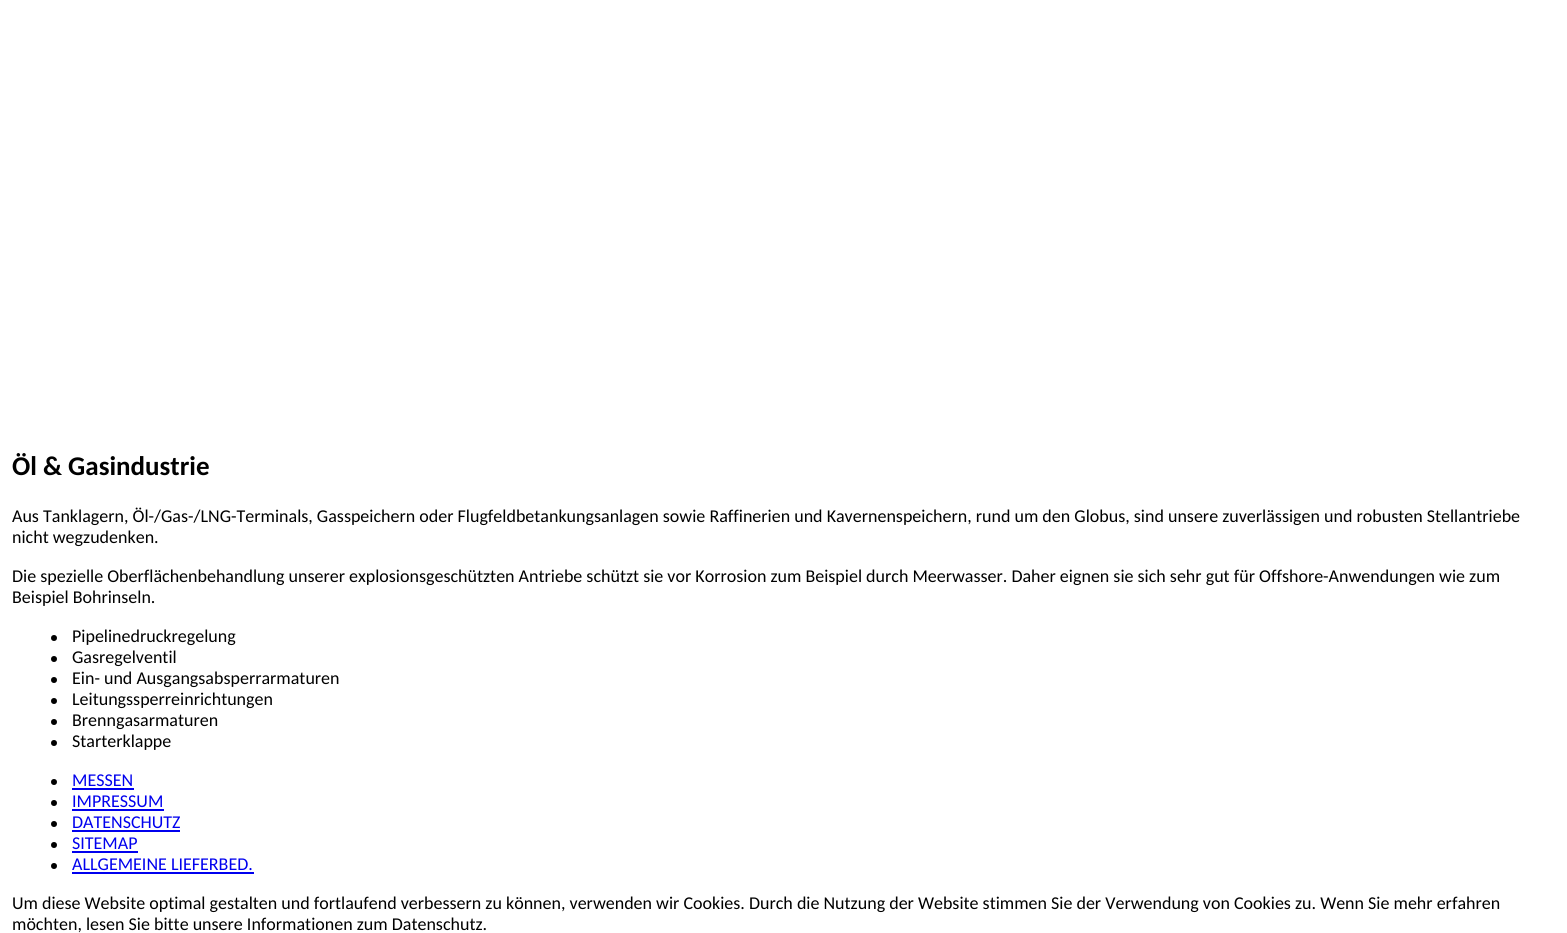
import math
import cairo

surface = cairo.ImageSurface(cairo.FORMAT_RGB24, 1567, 933)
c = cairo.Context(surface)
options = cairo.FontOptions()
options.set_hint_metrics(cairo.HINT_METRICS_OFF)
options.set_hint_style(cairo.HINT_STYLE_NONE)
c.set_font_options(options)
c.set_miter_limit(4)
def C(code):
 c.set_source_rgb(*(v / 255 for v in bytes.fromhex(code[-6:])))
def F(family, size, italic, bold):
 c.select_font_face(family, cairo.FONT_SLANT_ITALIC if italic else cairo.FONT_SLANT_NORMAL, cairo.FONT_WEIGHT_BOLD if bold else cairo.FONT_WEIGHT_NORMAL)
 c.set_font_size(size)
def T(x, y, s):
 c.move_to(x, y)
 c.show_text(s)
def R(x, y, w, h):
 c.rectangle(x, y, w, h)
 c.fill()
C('ffffff')
c.paint()
F('Carlito',27,0,1)
C('000000')
T(12,475,'Öl & Gasindustrie')
F('Carlito',18,0,0)
T(12,522,'Aus Tanklagern, Öl-/Gas-/LNG-Terminals, Gasspeichern oder Flugfeldbetankungsanlagen sowie Raffinerien und Kavernenspeichern, rund um den Globus, sind unsere zuverlässigen und robusten Stellantriebe')
T(12,543,'nicht wegzudenken.')
T(12,582,'Die spezielle Oberflächenbehandlung unserer explosionsgeschützten Antriebe schützt sie vor Korrosion zum Beispiel durch Meerwasser. Daher eignen sie sich sehr gut für Offshore-Anwendungen wie zum')
T(12,603,'Beispiel Bohrinseln.')
c.new_path()
c.arc(54,638,3,0,2 * math.pi)
c.fill()
T(72,642,'Pipelinedruckregelung')
c.new_path()
c.arc(54,659,3,0,2 * math.pi)
c.fill()
T(72,663,'Gasregelventil')
c.new_path()
c.arc(54,680,3,0,2 * math.pi)
c.fill()
T(72,684,'Ein- und Ausgangsabsperrarmaturen')
c.new_path()
c.arc(54,701,3,0,2 * math.pi)
c.fill()
T(72,705,'Leitungssperreinrichtungen')
c.new_path()
c.arc(54,722,3,0,2 * math.pi)
c.fill()
T(72,726,'Brenngasarmaturen')
c.new_path()
c.arc(54,743,3,0,2 * math.pi)
c.fill()
T(72,747,'Starterklappe')
c.new_path()
c.arc(54,782,3,0,2 * math.pi)
c.fill()
C('0000ee')
T(72,786,'MESSEN')
R(72,788,62,2)
C('000000')
c.new_path()
c.arc(54,803,3,0,2 * math.pi)
c.fill()
C('0000ee')
T(72,807,'IMPRESSUM')
R(72,809,92,2)
C('000000')
c.new_path()
c.arc(54,824,3,0,2 * math.pi)
c.fill()
C('0000ee')
T(72,828,'DATENSCHUTZ')
R(72,830,108,2)
C('000000')
c.new_path()
c.arc(54,845,3,0,2 * math.pi)
c.fill()
C('0000ee')
T(72,849,'SITEMAP')
R(72,851,66,2)
C('000000')
c.new_path()
c.arc(54,866,3,0,2 * math.pi)
c.fill()
C('0000ee')
T(72,870,'ALLGEMEINE LIEFERBED.')
R(72,872,182,2)
C('000000')
T(12,909,'Um diese Website optimal gestalten und fortlaufend verbessern zu können, verwenden wir Cookies. Durch die Nutzung der Website stimmen Sie der Verwendung von Cookies zu. Wenn Sie mehr erfahren')
T(12,930,'möchten, lesen Sie bitte unsere Informationen zum Datenschutz.')
surface.write_to_png('o.png')
